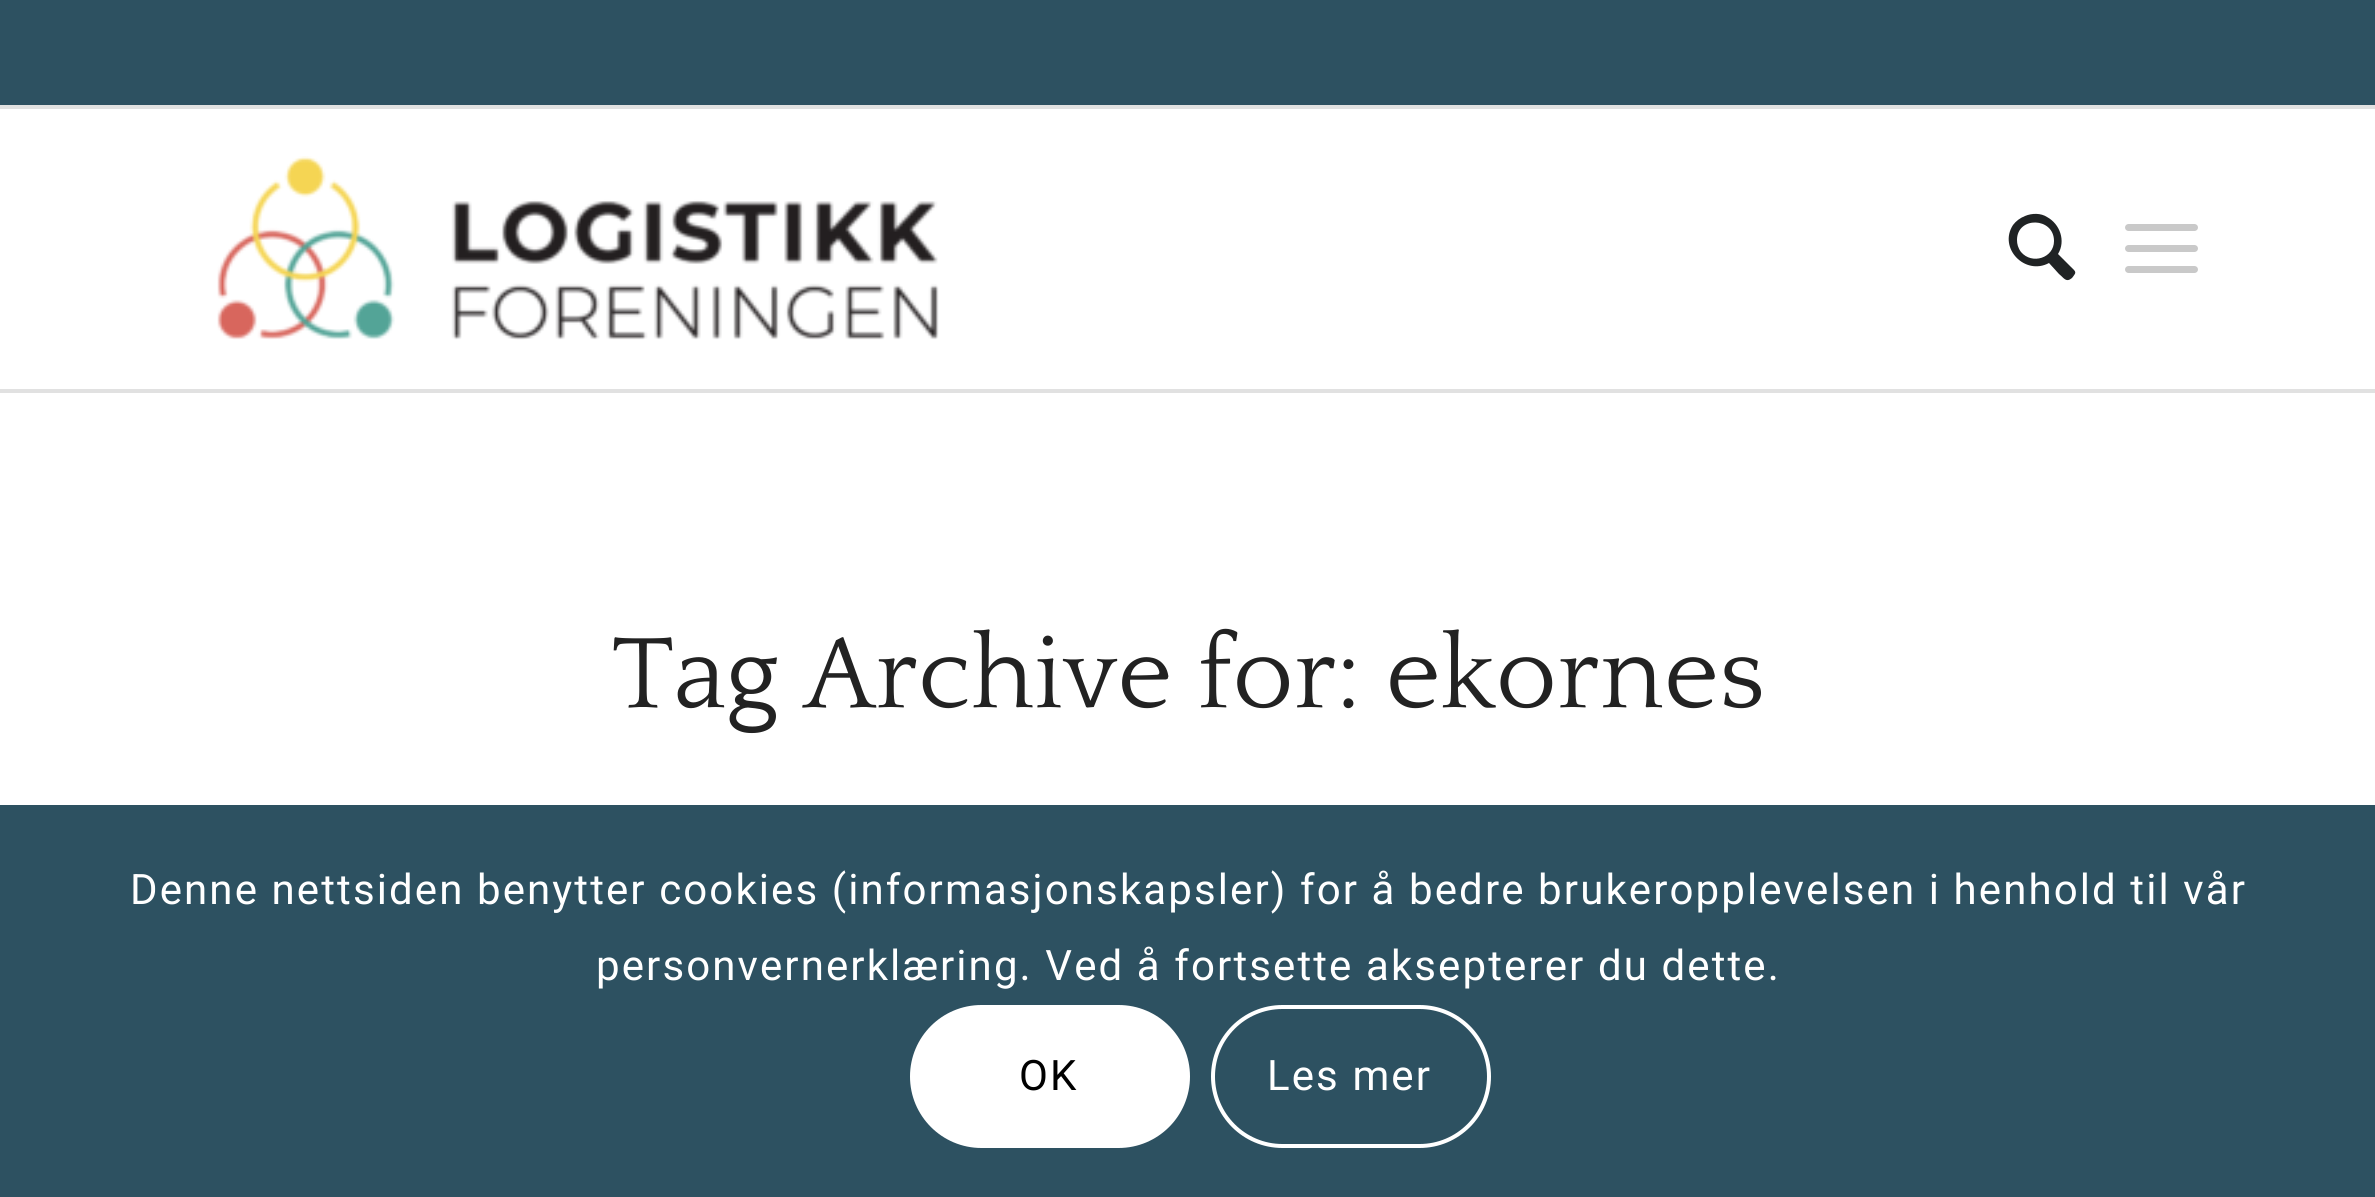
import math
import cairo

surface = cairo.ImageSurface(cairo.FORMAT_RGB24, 2375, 1197)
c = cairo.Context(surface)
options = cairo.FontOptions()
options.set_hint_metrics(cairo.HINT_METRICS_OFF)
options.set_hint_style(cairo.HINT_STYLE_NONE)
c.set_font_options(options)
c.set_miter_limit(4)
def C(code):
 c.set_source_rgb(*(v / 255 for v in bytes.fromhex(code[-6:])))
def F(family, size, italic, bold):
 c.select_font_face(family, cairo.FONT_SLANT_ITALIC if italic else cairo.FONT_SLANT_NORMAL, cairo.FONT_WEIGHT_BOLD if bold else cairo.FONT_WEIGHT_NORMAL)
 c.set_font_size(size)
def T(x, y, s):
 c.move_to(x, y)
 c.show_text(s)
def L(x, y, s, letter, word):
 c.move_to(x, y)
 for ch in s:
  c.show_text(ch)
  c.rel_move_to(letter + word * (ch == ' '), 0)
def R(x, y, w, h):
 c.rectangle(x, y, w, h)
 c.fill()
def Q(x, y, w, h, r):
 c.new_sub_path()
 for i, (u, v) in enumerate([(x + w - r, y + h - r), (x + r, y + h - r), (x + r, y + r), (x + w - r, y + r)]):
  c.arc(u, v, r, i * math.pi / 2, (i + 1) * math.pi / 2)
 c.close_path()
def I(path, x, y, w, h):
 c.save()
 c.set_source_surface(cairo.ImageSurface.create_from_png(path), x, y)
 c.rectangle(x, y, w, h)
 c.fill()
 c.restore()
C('ffffff')
c.paint()
C('2d5161')
R(0,0,2375,105)
C('e1e1e1')
R(0,105,2375,4)
R(0,389,2375,4)
I('1.png',217,156,722,184)
C('202324')
c.new_path()
c.move_to(2074,270)
c.curve_to(2077,273,2074,275,2072,278)
c.curve_to(2066,283,2064,278,2059,274)
c.line_to(2049,263)
c.curve_to(2025,276,1998,248,2013,225)
c.curve_to(2016,221,2020,218,2025,216)
c.curve_to(2032,213,2041,213,2047,217)
c.curve_to(2060,224,2066,241,2058,254)
c.close_path()
c.move_to(2017,240)
c.curve_to(2017,244,2018,248,2021,252)
c.curve_to(2032,265,2054,258,2054,241)
c.curve_to(2054,217,2017,216,2017,240)
c.close_path()
c.fill()
C('c9c9c9')
Q(2125,245,73,7,3.5)
c.fill()
Q(2125,224,73,7,3.5)
c.fill()
Q(2125,266,73,7,3.5)
c.fill()
F('Quattrocento',105,0,0)
C('222222')
T(612,707,'Tag Archive for: ekornes')
C('2d5161')
R(0,805,2375,392)
F('Roboto',42,0,0)
C('ffffff')
L(130,904,'Denne nettsiden benytter cookies (informasjonskapsler) for å bedre brukeropplevelsen i henhold til vår',2.1,0)
L(596,980,'personvernerklæring. Ved å fortsette aksepterer du dette.',2.1,0)
Q(910,1005,280,143,71.5)
c.fill()
C('000000')
L(1019,1090,'OK',2.1,0)
Q(1213,1007,276,139,69.5)
C('ffffff')
c.set_line_width(4)
c.stroke()
L(1267,1090,'Les mer',2.1,0)
surface.write_to_png('o.png')
